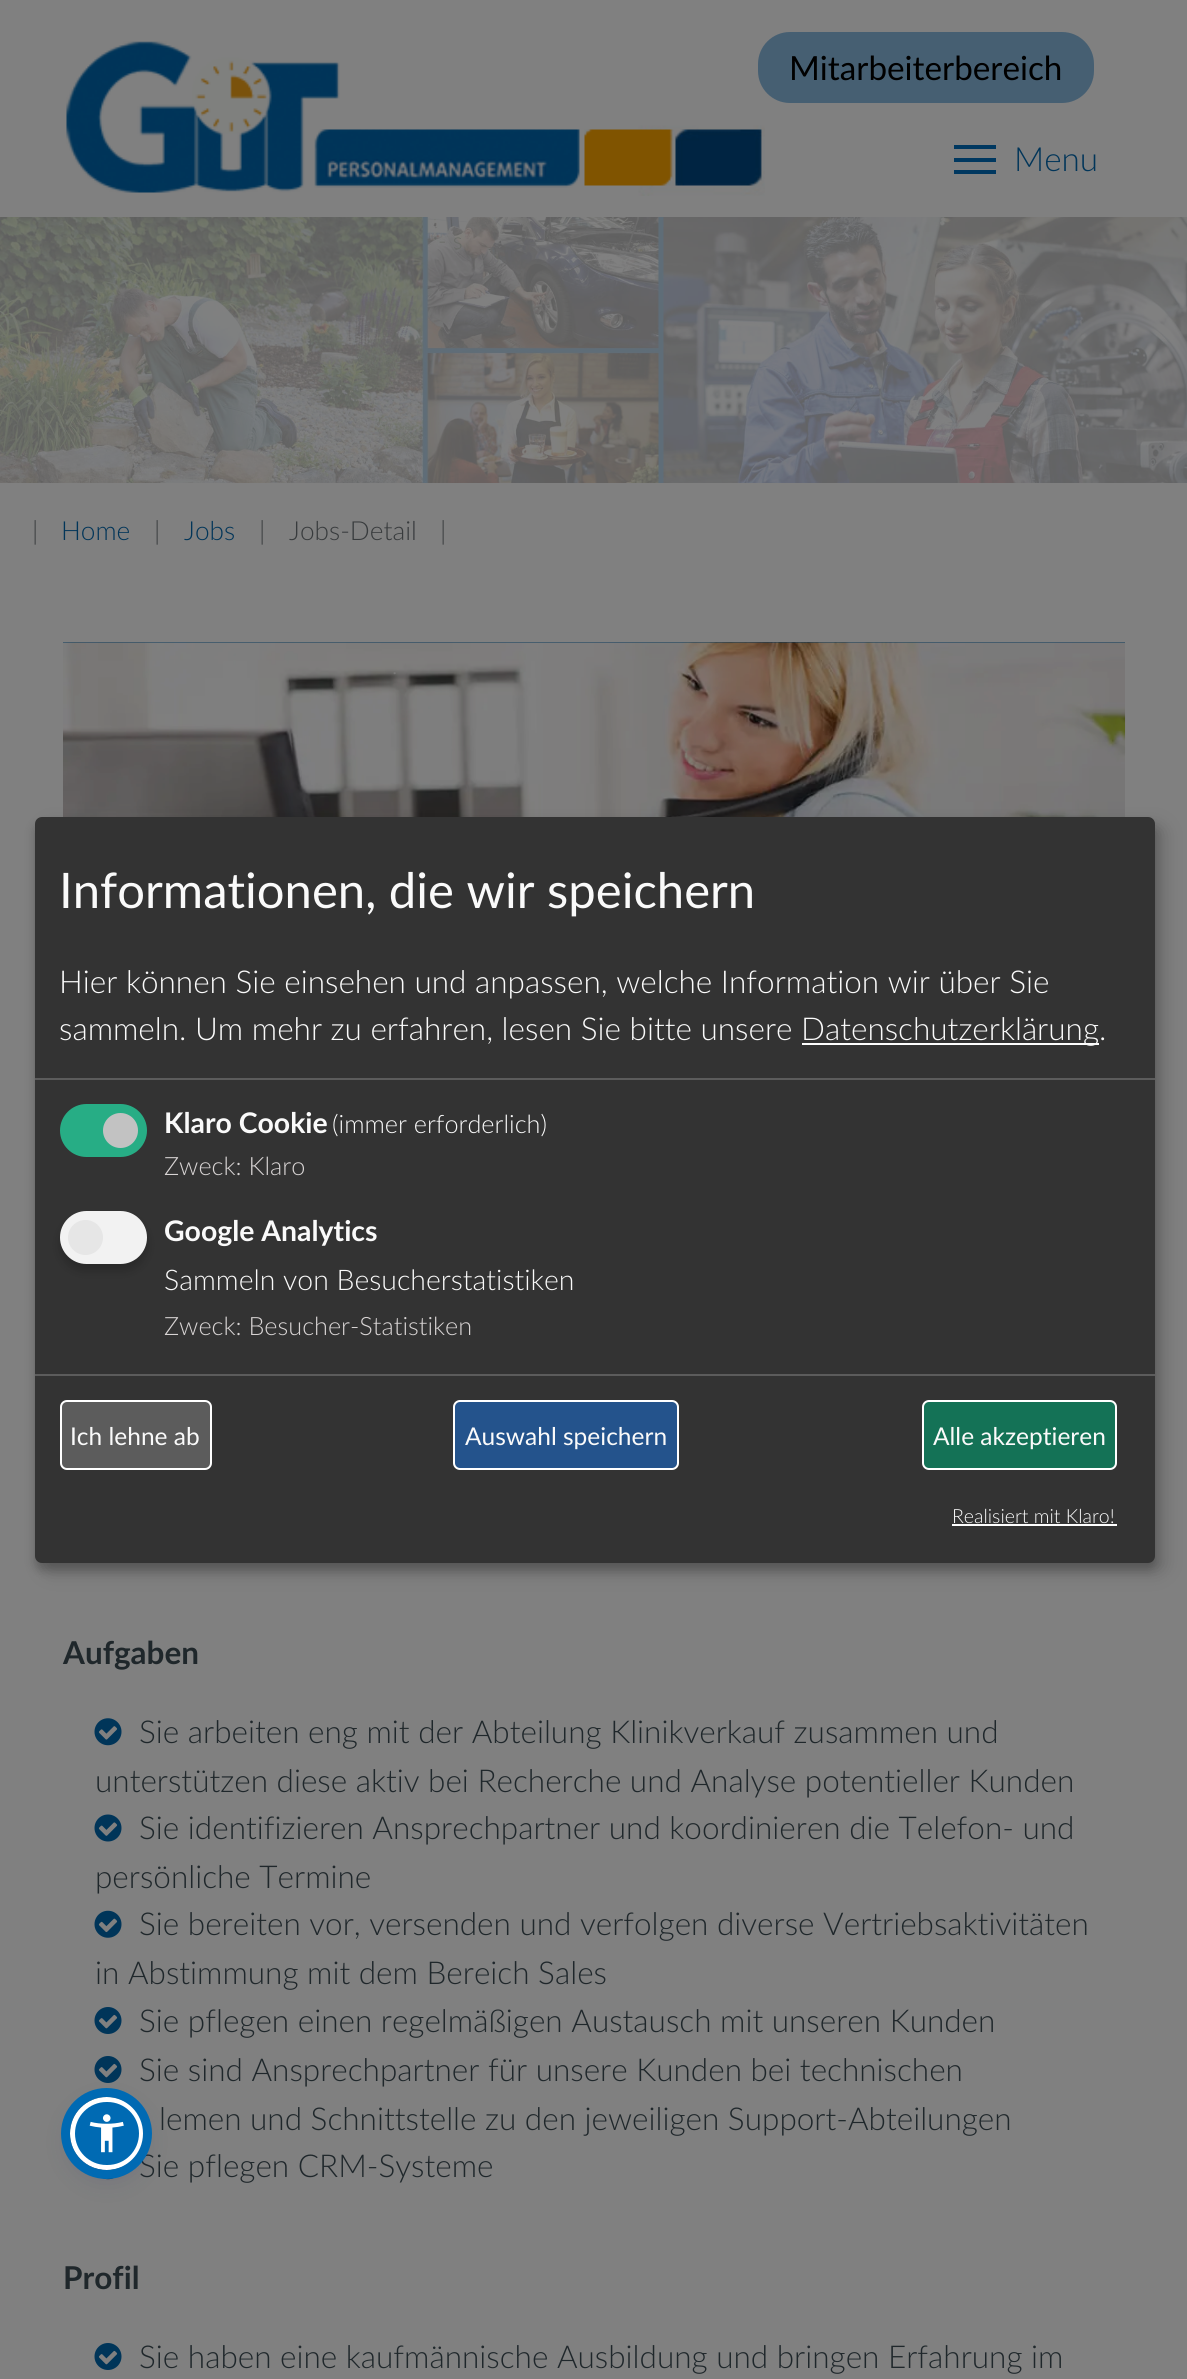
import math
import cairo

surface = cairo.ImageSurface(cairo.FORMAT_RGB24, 1187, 2379)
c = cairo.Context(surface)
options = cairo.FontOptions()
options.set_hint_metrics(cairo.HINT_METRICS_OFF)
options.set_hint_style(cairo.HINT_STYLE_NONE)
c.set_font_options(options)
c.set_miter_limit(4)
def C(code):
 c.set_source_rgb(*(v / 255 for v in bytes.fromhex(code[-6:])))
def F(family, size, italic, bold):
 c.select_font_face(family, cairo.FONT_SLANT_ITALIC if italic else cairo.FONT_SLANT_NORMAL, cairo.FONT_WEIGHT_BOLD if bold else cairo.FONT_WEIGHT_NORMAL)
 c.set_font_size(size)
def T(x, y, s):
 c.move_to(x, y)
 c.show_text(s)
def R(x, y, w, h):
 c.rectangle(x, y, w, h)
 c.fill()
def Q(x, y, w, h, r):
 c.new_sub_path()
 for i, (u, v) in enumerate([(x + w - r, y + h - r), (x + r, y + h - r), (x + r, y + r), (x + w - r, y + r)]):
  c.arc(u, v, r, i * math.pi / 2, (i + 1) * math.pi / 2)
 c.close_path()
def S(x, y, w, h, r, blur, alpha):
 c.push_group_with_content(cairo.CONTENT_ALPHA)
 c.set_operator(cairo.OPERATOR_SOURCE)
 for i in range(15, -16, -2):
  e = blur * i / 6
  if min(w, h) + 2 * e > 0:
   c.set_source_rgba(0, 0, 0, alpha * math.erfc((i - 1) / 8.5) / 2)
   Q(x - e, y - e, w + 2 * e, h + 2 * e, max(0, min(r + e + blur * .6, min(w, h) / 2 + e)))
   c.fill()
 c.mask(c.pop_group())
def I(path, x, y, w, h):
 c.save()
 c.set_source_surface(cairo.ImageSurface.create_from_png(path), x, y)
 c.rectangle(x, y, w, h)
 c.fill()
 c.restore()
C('808080')
c.paint()
I('1.png',66,41,699,155)
C('465f72')
Q(758,32,336,71,32)
c.fill()
F('Lato',33.25,0,0)
C('000000')
T(789,80,'Mitarbeiterbereich')
C('003860')
R(954,158,42,4)
R(954,145,42,4)
R(954,170,42,4)
F('Lato Light',33.25,0,0)
C('013559')
T(1014,171,'Menu')
I('2.png',0,217,1187,266)
F('Lato Light',23,0,0)
C('696b66')
T(438,249,'- s')
F('Lato Light',26.25,0,0)
C('383b3d')
T(32,540,'|')
C('013559')
T(61,540,'Home')
C('383b3d')
T(154,540,'|')
C('013559')
T(184,540,'Jobs')
C('383b3d')
T(259,540,'|')
T(289,540,'Jobs-Detail')
T(440,540,'|')
C('013559')
R(63,642,1062,1)
I('3.png',63,642,1063,175)
F('Lato Light',23,0,0)
C('7b7a79')
T(392,674,'.')
F('Lato',31.5,0,1)
C('1f272b')
T(63,1664,'Aufgaben')
I('4.png',94,1718,28,28)
F('Lato Light',31.5,0,0)
T(139,1743,'Sie arbeiten eng mit der Abteilung Klinikverkauf zusammen und')
T(95,1792,'unterstützen diese aktiv bei Recherche und Analyse potentieller Kunden')
I('5.png',94,1814,28,28)
T(139,1839,'Sie identifizieren Ansprechpartner und koordinieren die Telefon- und')
T(95,1888,'persönliche Termine')
I('6.png',94,1910,28,28)
T(139,1935,'Sie bereiten vor, versenden und verfolgen diverse Vertriebsaktivitäten')
T(95,1984,'in Abstimmung mit dem Bereich Sales')
I('7.png',94,2007,28,27)
T(139,2032,'Sie pflegen einen regelmäßigen Austausch mit unseren Kunden')
I('8.png',94,2056,28,27)
T(139,2081,'Sie sind Ansprechpartner für unsere Kunden bei technischen')
T(159,2130,'lemen und Schnittstelle zu den jeweiligen Support-Abteilungen')
I('9.png',94,2167,27,13)
T(139,2177,'Sie pflegen CRM-Systeme')
F('Lato',31.5,0,1)
T(63,2289,'Profil')
I('8.png',94,2343,28,27)
F('Lato Light',31.5,0,0)
T(139,2368,'Sie haben eine kaufmännische Ausbildung und bringen Erfahrung im')
C('000000')
S(44,826,1120,746,7,9,.19)
S(35,824,1120,746,7,5,.2)
C('333333')
Q(35,817,1120,746,7)
c.fill()
C('5c5c5c')
R(35,1078,1120,2)
F('Lato',49,0,0)
C('fafafa')
T(59,908,'Informationen, die wir speichern')
F('Lato Light',31.5,0,0)
T(59,993,'Hier können Sie einsehen und anpassen, welche Information wir über Sie')
T(59,1040,'sammeln. Um mehr zu erfahren, lesen Sie bitte unsere')
C('ffffff')
R(802,1043,297,2)
C('fafafa')
T(801,1040,'Datenschutzerklärung')
T(1099,1040,'.')
C('27ad85')
Q(60,1104,87,53,26.5)
c.fill()
C('c2c2c2')
c.arc(120.5,1130.5,17.5,0,2 * math.pi)
c.fill()
F('Lato',28.4,0,1)
C('fafafa')
T(164,1133,'Klaro Cookie')
F('Lato Light',25.25,0,0)
T(332,1133,'(immer erforderlich)')
C('d8d4d4')
T(164,1175,'Zweck: Klaro')
C('000000')
S(60,1218,87,53,26.5,5,.2)
C('f2f2f2')
Q(60,1211,87,53,26.5)
c.fill()
C('e6e6e6')
c.arc(85.5,1237.5,17.5,0,2 * math.pi)
c.fill()
F('Lato',28.4,0,1)
C('fafafa')
T(164,1241,'Google Analytics')
F('Lato Light',28.4,0,0)
T(164,1290,'Sammeln von Besucherstatistiken')
F('Lato Light',25.25,0,0)
C('d8d4d4')
T(164,1335,'Zweck: Besucher-Statistiken')
C('5c5c5c')
R(35,1374,1120,2)
Q(61,1401,150,68,6)
c.fill_preserve()
C('ffffff')
c.stroke()
F('Lato',24.5,0,0)
C('fafafa')
T(70,1445,'Ich lehne ab')
C('24538c')
Q(454,1401,224,68,6)
c.fill_preserve()
C('ffffff')
c.stroke()
C('fafafa')
T(465,1445,'Auswahl speichern')
C('147256')
Q(923,1401,193,68,6)
c.fill_preserve()
C('ffffff')
c.stroke()
C('fafafa')
T(933,1445,'Alle akzeptieren')
F('Lato Light',19.5,0,0)
T(952,1523,'Realisiert mit Klaro!')
C('ffffff')
R(952,1524,165,2)
C('5d6494')
S(70,2100,74,74,37,3.5,.2)
C('252c61')
S(70,2105,74,74,37,13,.15)
C('006ab3')
Q(72.5,2099.5,69,68,34)
c.fill_preserve()
C('ffffff')
c.set_line_width(5)
c.stroke()
c.arc(106.5,2133.5,41,0,2 * math.pi)
C('006ab3')
c.set_line_width(9)
c.stroke()
I('10.png',89,2114,35,39)
surface.write_to_png('o.png')
